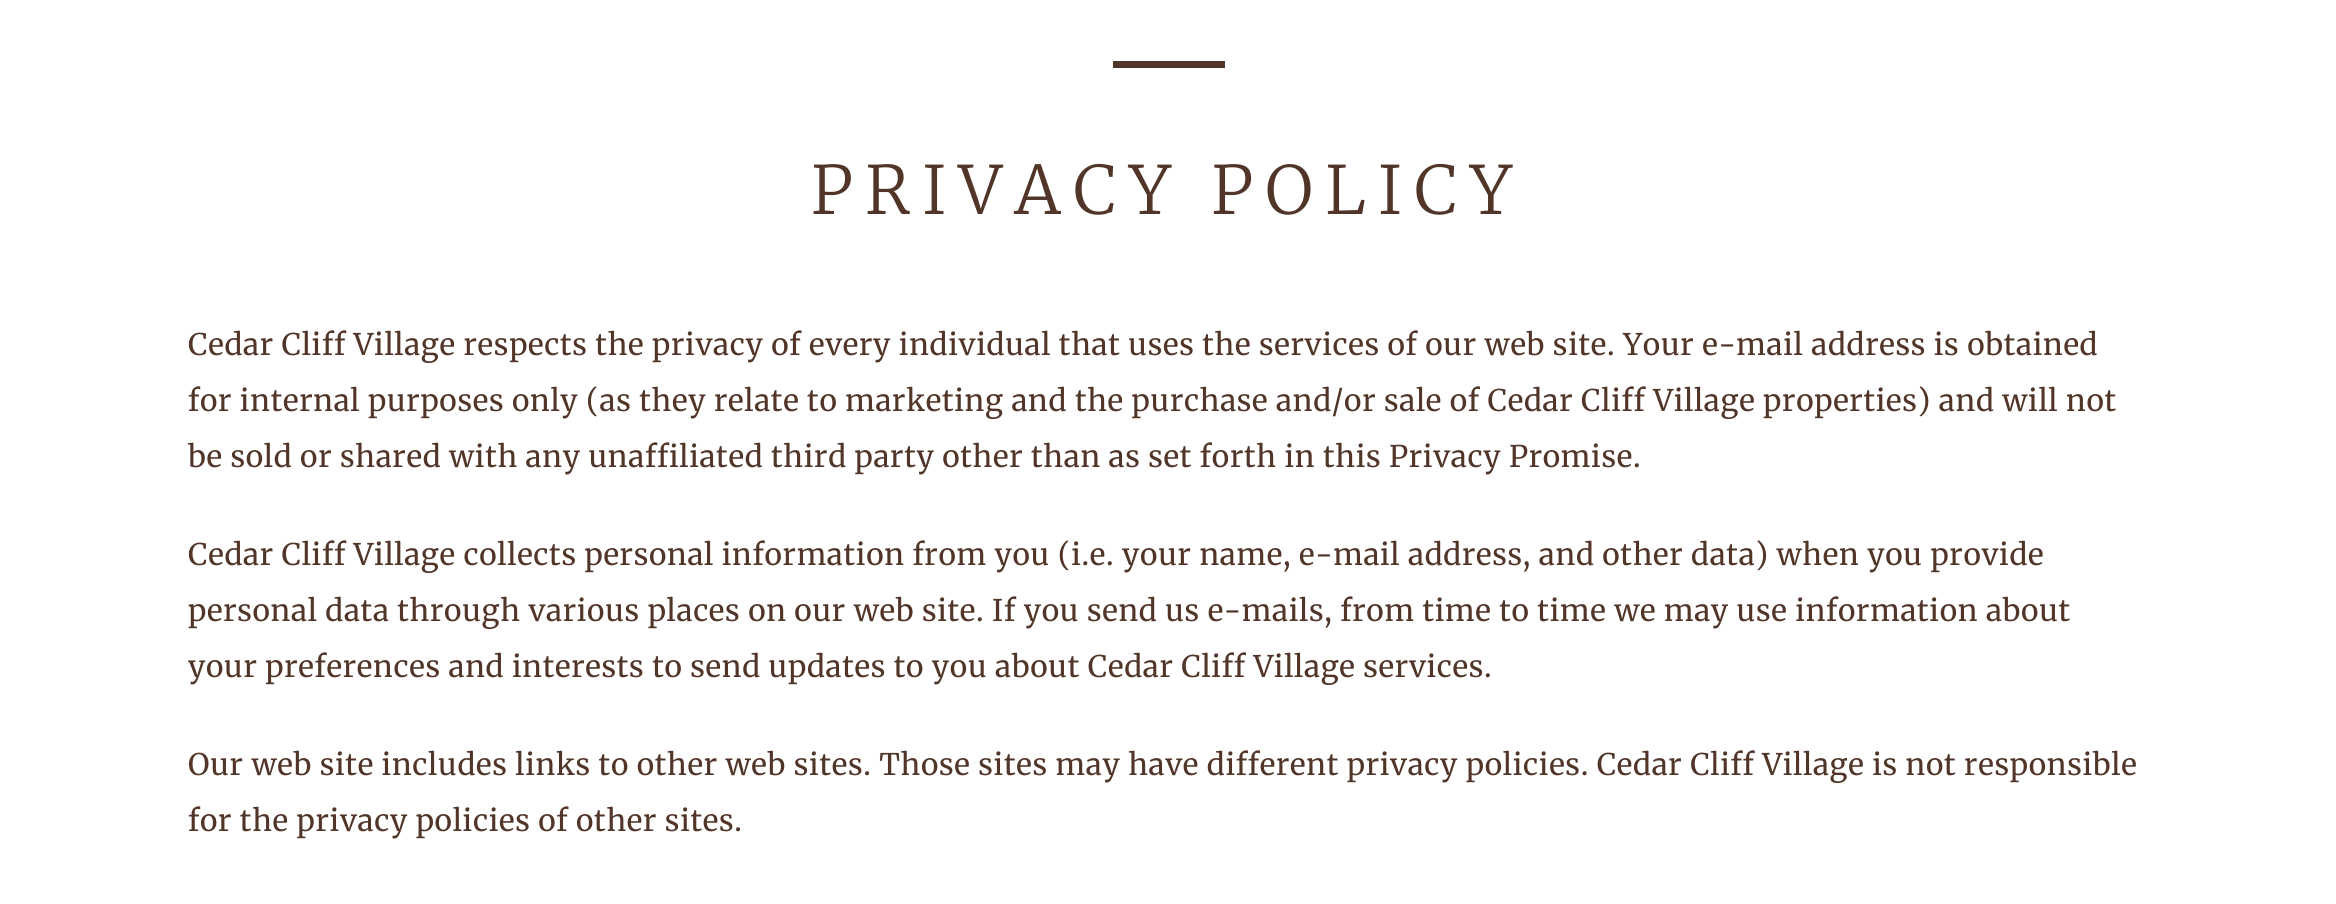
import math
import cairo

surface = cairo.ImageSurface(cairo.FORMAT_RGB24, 2336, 904)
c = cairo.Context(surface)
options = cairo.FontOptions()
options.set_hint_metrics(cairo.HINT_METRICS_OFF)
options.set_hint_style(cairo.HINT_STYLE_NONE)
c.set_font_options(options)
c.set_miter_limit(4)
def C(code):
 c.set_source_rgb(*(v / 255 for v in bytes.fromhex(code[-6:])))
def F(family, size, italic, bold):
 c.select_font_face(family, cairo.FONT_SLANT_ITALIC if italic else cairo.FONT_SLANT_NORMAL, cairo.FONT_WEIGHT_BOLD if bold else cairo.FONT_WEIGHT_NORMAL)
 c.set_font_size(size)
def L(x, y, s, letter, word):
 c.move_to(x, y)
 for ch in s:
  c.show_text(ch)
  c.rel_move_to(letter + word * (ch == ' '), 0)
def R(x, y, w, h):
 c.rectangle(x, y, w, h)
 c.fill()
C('ffffff')
c.paint()
C('513528')
R(1113,61,112,7)
F('Merriweather Light',66.5,0,0)
L(811,214,'PRIVACY POLICY',12.25,0)
F('Merriweather',29.75,0,0)
L(188,355,'Cedar Cliff Village respects the privacy of every individual that uses the services of our web site. Your e-mail address is obtained',.7,0)
L(188,411,'for internal purposes only (as they relate to marketing and the purchase and/or sale of Cedar Cliff Village properties) and will not',.7,0)
L(188,467,'be sold or shared with any unaffiliated third party other than as set forth in this Privacy Promise.',.7,0)
L(188,565,'Cedar Cliff Village collects personal information from you (i.e. your name, e-mail address, and other data) when you provide',.7,0)
L(188,621,'personal data through various places on our web site. If you send us e-mails, from time to time we may use information about',.7,0)
L(188,677,'your preferences and interests to send updates to you about Cedar Cliff Village services.',.7,0)
L(188,775,'Our web site includes links to other web sites. Those sites may have different privacy policies. Cedar Cliff Village is not responsible',.7,0)
L(188,831,'for the privacy policies of other sites.',.7,0)
surface.write_to_png('o.png')
